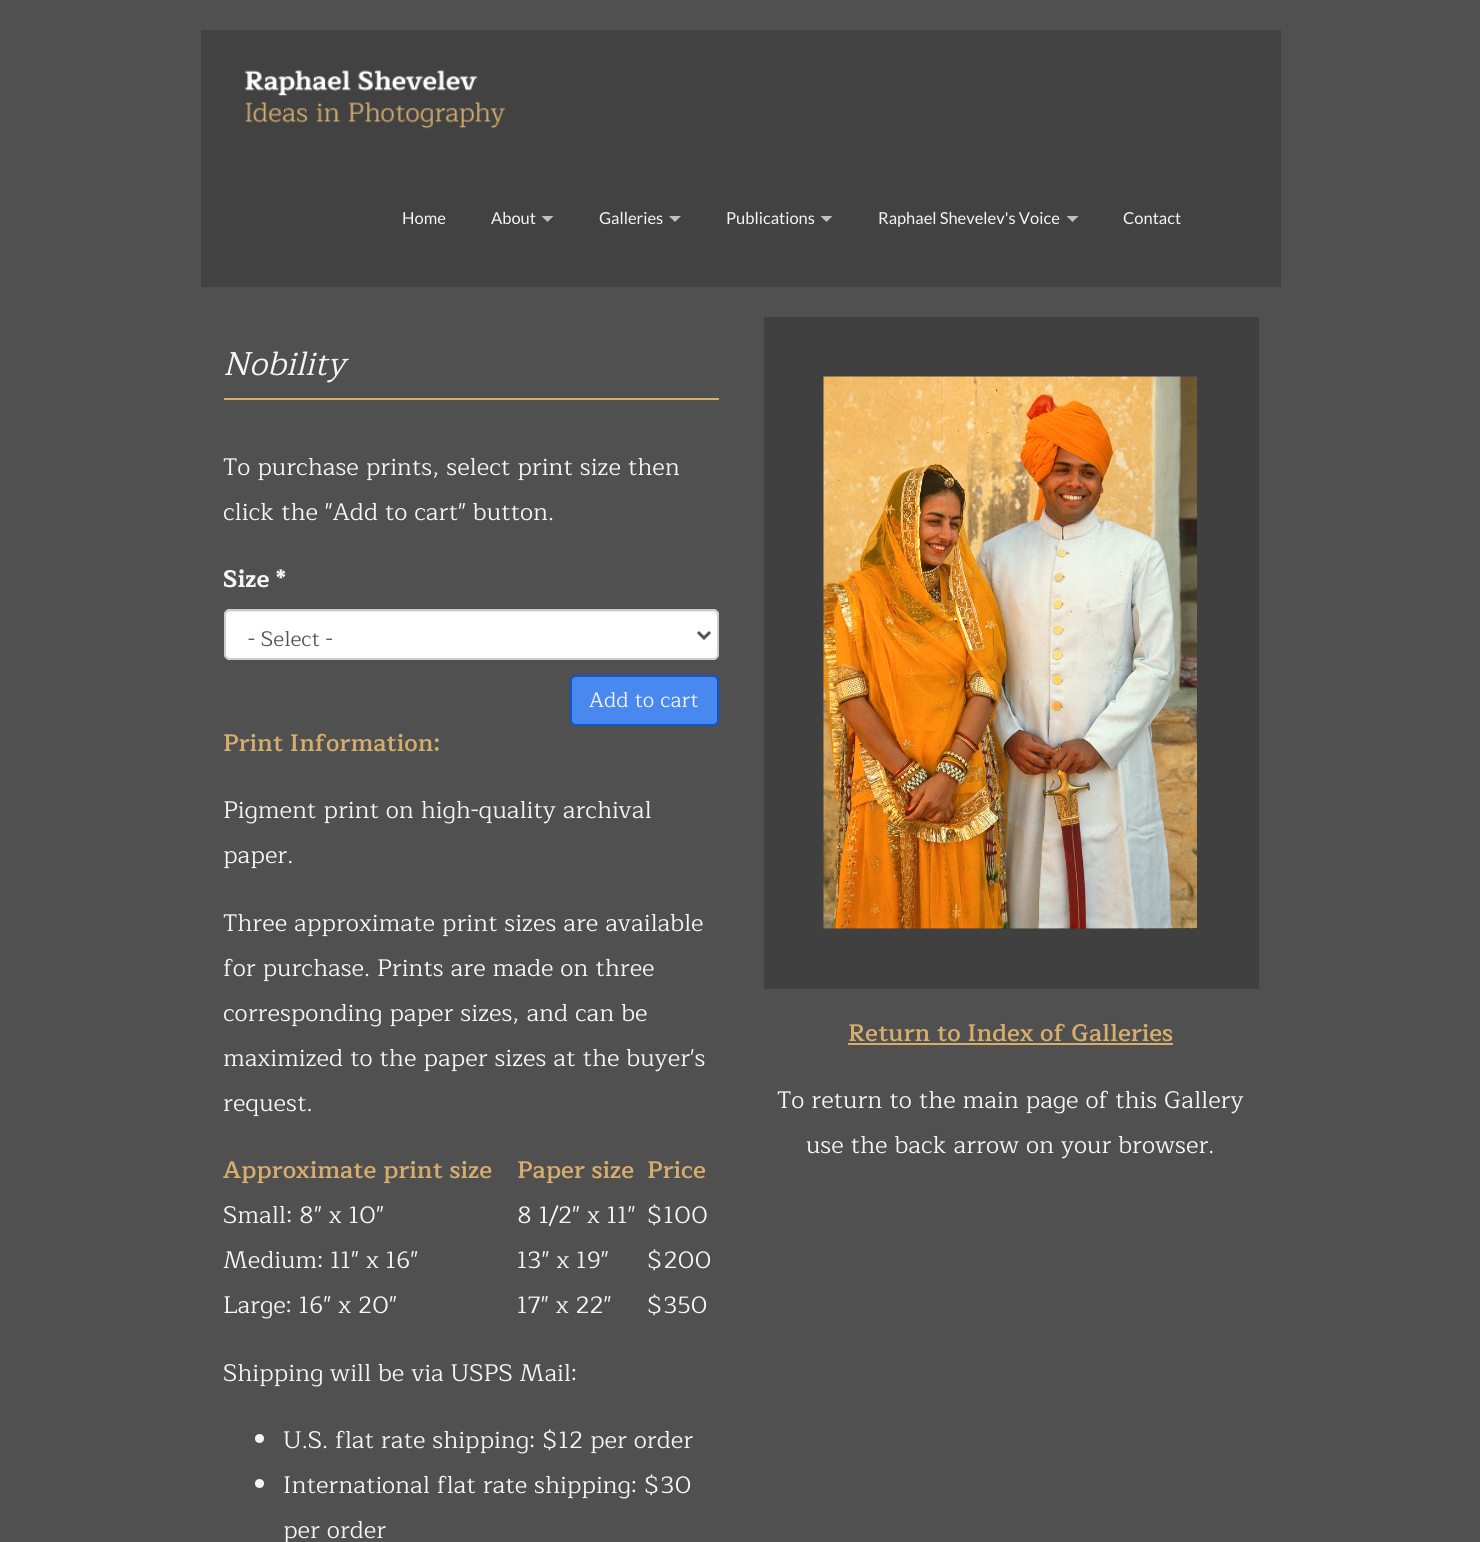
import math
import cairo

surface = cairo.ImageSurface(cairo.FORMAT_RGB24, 1480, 1542)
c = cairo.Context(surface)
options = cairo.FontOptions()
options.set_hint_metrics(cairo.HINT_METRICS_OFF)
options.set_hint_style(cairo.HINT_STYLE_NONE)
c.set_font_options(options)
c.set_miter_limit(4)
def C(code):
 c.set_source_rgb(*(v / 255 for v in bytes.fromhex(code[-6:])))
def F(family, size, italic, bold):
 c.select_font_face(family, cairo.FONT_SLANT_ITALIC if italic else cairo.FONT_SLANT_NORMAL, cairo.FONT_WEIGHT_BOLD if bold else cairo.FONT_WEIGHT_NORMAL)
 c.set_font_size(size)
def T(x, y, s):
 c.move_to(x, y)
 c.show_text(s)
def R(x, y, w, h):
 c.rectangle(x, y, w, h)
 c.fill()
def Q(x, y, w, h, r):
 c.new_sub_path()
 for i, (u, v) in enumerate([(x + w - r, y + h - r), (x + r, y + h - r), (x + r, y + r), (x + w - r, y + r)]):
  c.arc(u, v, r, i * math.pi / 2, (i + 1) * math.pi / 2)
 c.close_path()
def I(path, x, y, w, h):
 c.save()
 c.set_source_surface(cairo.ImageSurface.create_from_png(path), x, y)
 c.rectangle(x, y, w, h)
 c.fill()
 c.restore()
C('505050')
c.paint()
C('424242')
R(201,30,1080,257)
I('1.png',245,70,260,59)
F('Lato',16.5,0,0)
C('f5f5f5')
T(402,224,'Home')
T(491,224,'About')
C('c0c0c0')
c.new_path()
c.move_to(541.5,216)
c.line_to(553.5,216)
c.line_to(547.5,222)
c.close_path()
c.fill()
C('f5f5f5')
T(599,224,'Galleries')
C('c0c0c0')
c.new_path()
c.move_to(669,216)
c.line_to(681,216)
c.line_to(675,222)
c.close_path()
c.fill()
C('f5f5f5')
T(726,224,'Publications')
C('c0c0c0')
c.new_path()
c.move_to(820.5,216)
c.line_to(832.5,216)
c.line_to(826.5,222)
c.close_path()
c.fill()
C('f5f5f5')
T(878,224,'Raphael Shevelev\'s Voice')
C('c0c0c0')
c.new_path()
c.move_to(1066.5,216)
c.line_to(1078.5,216)
c.line_to(1072.5,222)
c.close_path()
c.fill()
C('f5f5f5')
T(1123,224,'Contact')
C('d5ad6d')
R(224,398,495,2)
F('Maitree',33,1,0)
C('f5f5f5')
T(223,375,'Nobility')
F('Maitree',24,0,0)
T(223,475,'To purchase prints, select print size then')
T(223,520,'click the "Add to cart" button.')
F('Maitree',24,0,1)
T(223,587,'Size *')
C('ffffff')
Q(224,609,495,51,6)
c.fill()
C('ececec')
c.new_path()
c.move_to(230,612)
c.line_to(712,612)
c.curve_to(715,612,717,614,717,616)
c.curve_to(717,613,715,611,712,611)
c.line_to(230,611)
c.curve_to(227,611,225,613,225,616)
c.curve_to(225,614,227,612,230,612)
c.close_path()
c.fill()
Q(225,610,493,49,5)
C('cccccc')
c.stroke()
c.new_path()
c.move_to(698,632)
c.line_to(704,638)
c.line_to(710,632)
C('555555')
c.set_line_width(3)
c.stroke()
F('Maitree',21,0,0)
T(248,646,'- Select -')
C('4888ef')
Q(571,676,147,49,5)
c.fill_preserve()
C('1155cc')
c.set_line_width(2)
c.stroke()
C('f5f5f5')
T(589,707,'Add to cart')
F('Maitree SemiBold',24,0,0)
C('d5ad6d')
T(223,751,'Print Information:')
F('Maitree',24,0,0)
C('f5f5f5')
T(223,818,'Pigment print on high-quality archival')
T(223,863,'paper.')
T(223,931,'Three approximate print sizes are available')
T(223,976,'for purchase. Prints are made on three')
T(223,1021,'corresponding paper sizes, and can be')
T(223,1066,'maximized to the paper sizes at the buyer\'s')
T(223,1111,'request.')
F('Maitree SemiBold',24,0,0)
C('d5ad6d')
T(223,1178,'Approximate print size')
T(517,1178,'Paper size')
T(647,1178,'Price')
F('Maitree',24,0,0)
C('f5f5f5')
T(223,1223,'Small: 8" x 10"')
T(517,1223,'8 1/2" x 11"')
T(647,1223,'$100')
T(223,1268,'Medium: 11" x 16"')
T(517,1268,'13" x 19"')
T(647,1268,'$200')
T(223,1313,'Large: 16" x 20"')
T(517,1313,'17" x 22"')
T(647,1313,'$350')
T(223,1381,'Shipping will be via USPS Mail:')
c.new_path()
c.arc(259.5,1438.5,4.5,0,2 * math.pi)
c.fill()
T(283,1448,'U.S. flat rate shipping: $12 per order')
c.new_path()
c.arc(259.5,1483.5,4.5,0,2 * math.pi)
c.fill()
T(283,1493,'International flat rate shipping: $30')
T(283,1538,'per order')
C('404040')
R(764,317,495,672)
I('2.png',823,376,374,553)
F('Maitree SemiBold',24,0,0)
C('d5ad6d')
T(848,1041,'Return to Index of Galleries')
R(848,1043,325,2)
F('Maitree',24,0,0)
C('f5f5f5')
T(777,1108,'To return to the main page of this Gallery')
T(806,1153,'use the back arrow on your browser.')
surface.write_to_png('o.png')
